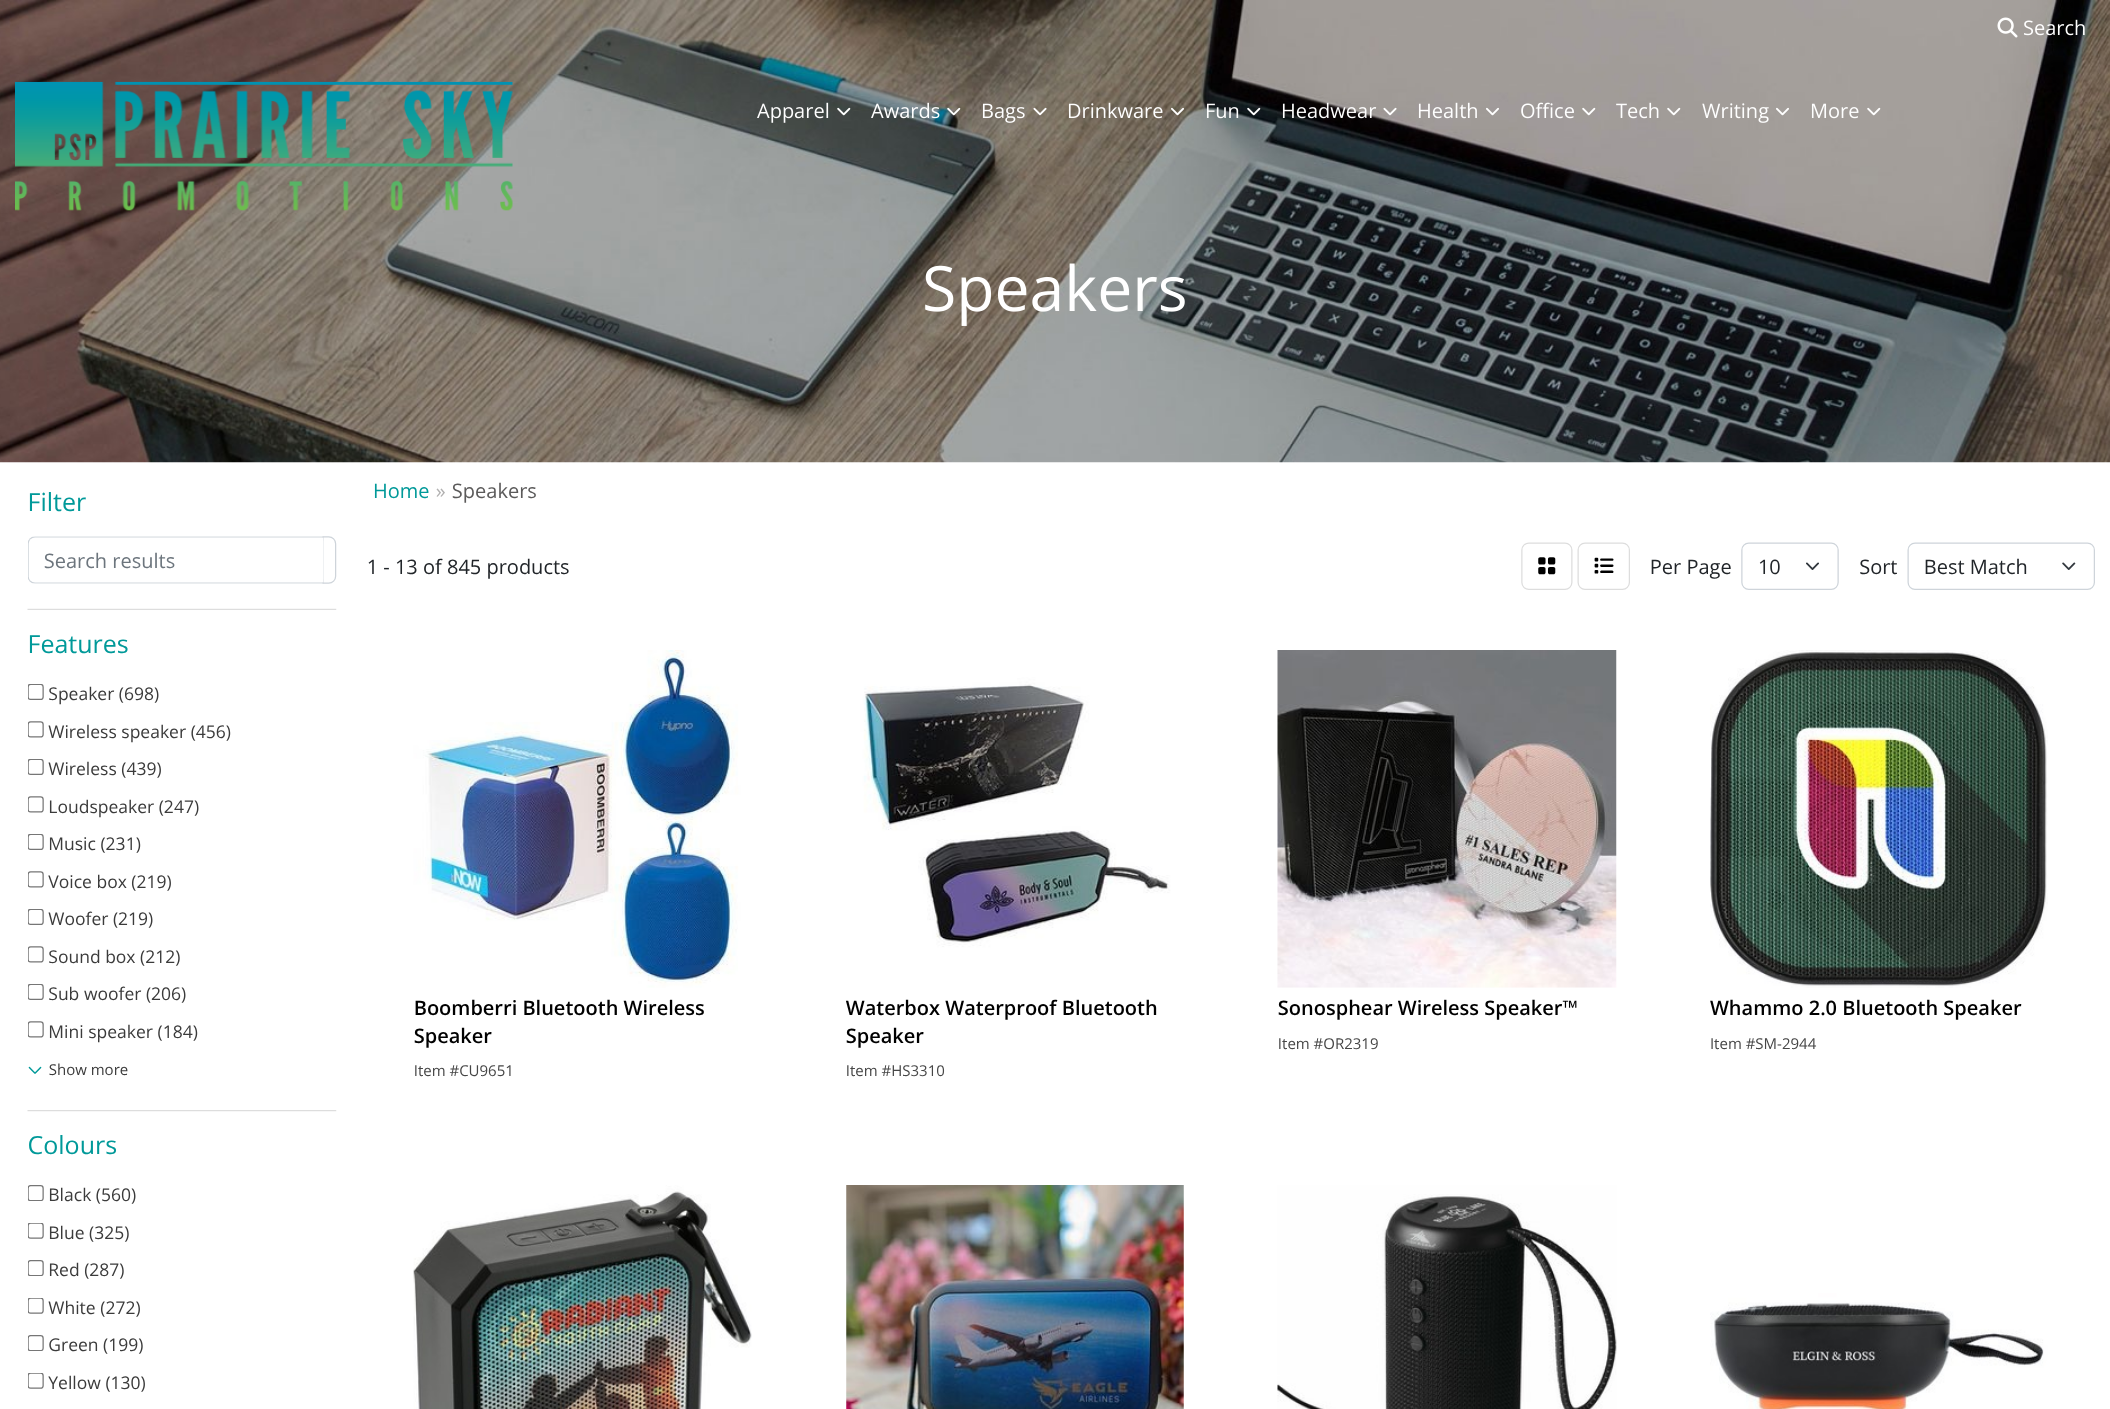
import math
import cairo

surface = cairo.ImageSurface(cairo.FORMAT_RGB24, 2110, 1409)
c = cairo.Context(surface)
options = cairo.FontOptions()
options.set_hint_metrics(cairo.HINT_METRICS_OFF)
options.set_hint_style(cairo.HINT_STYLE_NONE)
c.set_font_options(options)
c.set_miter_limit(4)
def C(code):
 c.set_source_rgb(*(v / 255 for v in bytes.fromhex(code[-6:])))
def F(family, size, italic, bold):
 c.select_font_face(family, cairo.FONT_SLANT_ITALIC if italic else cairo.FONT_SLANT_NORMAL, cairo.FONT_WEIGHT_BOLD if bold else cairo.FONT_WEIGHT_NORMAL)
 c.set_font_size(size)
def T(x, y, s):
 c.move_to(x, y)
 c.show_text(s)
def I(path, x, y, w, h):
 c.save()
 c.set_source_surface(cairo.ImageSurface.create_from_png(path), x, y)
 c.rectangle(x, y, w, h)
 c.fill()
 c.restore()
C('ffffff')
c.paint()
I('14.png',0,0,2110,463)
I('1.png',1997,17,21,21)
F('Open Sans',20,0,0)
C('ffffff')
T(2023,35,'Search')
I('2.png',15,81,498,130)
T(757,118,'Apparel')
I('3.png',837,107,14,9)
T(871,118,'Awards')
I('4.png',947,107,14,9)
T(981,118,'Bags')
I('5.png',1033,107,14,9)
T(1067,118,'Drinkware')
I('6.png',1171,107,13,9)
T(1205,118,'Fun')
I('7.png',1247,107,14,9)
T(1281,118,'Headwear')
I('8.png',1383,107,14,9)
T(1417,118,'Health')
I('9.png',1486,107,13,9)
T(1520,118,'Office')
I('10.png',1582,107,14,9)
T(1616,118,'Tech')
I('11.png',1667,107,14,9)
T(1702,118,'Writing')
I('12.png',1776,107,13,9)
T(1810,118,'More')
I('13.png',1867,107,14,9)
F('Open Sans',62.5,0,0)
T(922,311,'Speakers')
I('15.png',27,482,2068,927)
surface.write_to_png('o.png')
